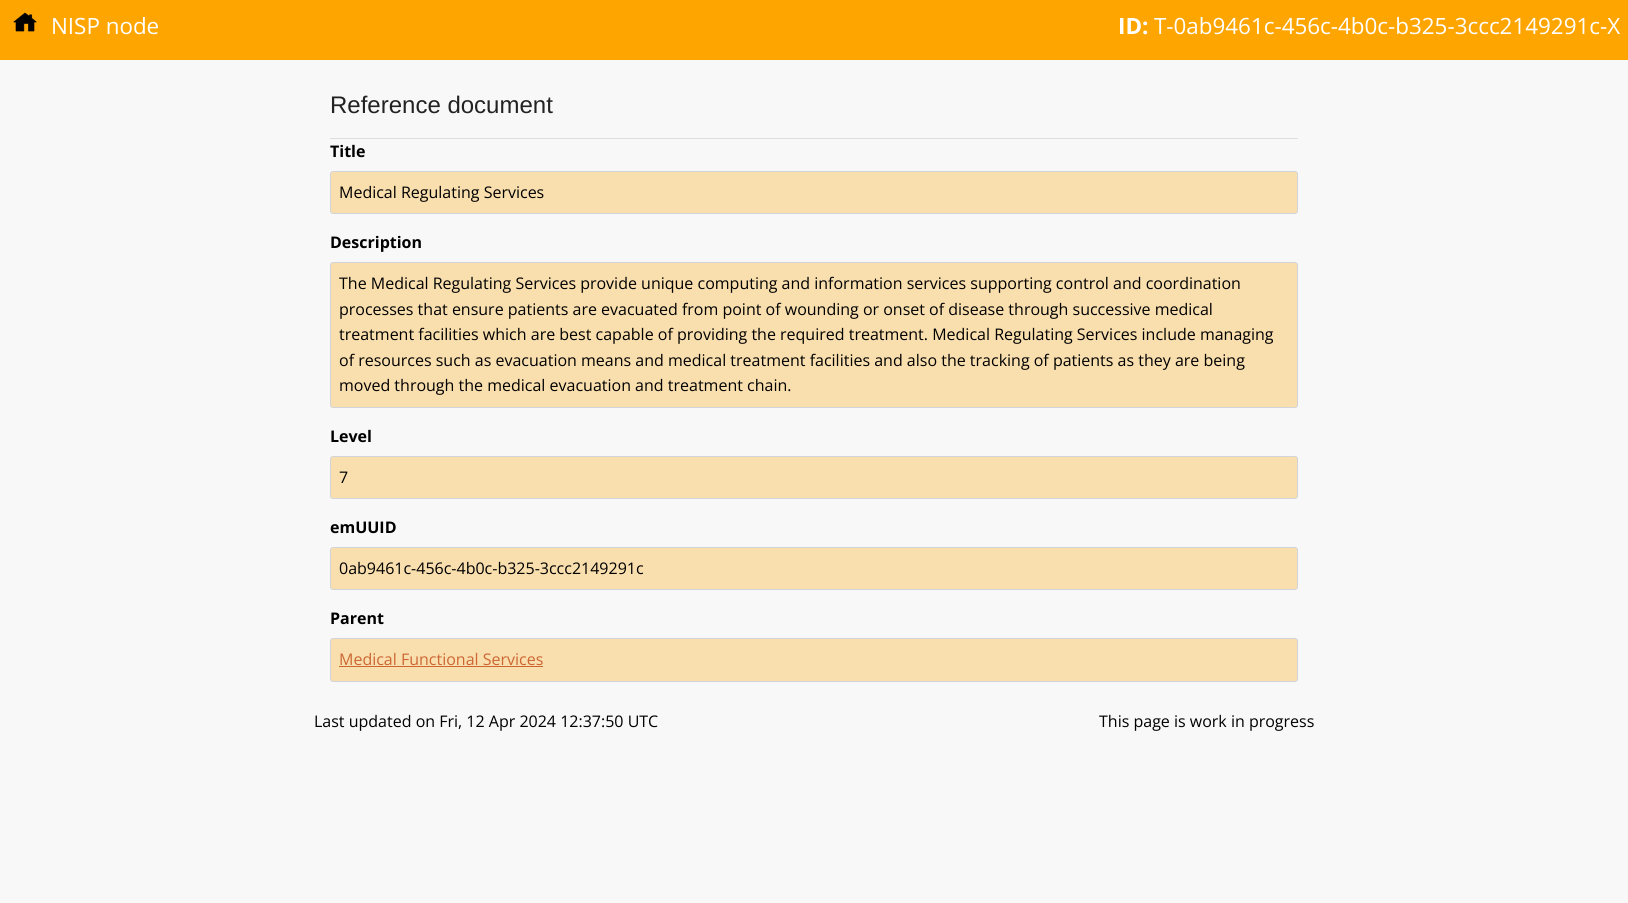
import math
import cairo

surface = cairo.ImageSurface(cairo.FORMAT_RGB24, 1628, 903)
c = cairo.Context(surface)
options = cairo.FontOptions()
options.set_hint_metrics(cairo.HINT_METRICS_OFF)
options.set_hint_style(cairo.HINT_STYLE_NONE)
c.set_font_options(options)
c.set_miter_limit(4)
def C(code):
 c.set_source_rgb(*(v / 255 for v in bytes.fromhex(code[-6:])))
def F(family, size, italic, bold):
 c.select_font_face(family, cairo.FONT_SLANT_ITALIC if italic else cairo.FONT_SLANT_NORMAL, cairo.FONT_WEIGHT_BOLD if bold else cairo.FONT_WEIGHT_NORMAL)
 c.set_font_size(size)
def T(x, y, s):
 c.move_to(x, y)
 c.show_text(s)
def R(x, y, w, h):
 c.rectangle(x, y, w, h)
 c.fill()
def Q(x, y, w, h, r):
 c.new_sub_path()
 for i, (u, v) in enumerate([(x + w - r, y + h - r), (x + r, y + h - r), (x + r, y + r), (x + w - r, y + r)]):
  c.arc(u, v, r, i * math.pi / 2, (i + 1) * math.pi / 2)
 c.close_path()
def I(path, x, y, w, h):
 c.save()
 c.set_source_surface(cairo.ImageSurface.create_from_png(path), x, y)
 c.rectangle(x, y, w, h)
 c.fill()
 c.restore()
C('f8f8f8')
c.paint()
C('ffa500')
R(0,0,1628,60)
I('1.png',13,12,24,20)
F('Open Sans',22.4,0,0)
C('ffffff')
T(51,34,'NISP node')
F('Open Sans',22.4,0,1)
T(1118,34,'ID:')
F('Open Sans',22.4,0,0)
T(1154,34,'T-0ab9461c-456c-4b0c-b325-3ccc2149291c-X')
C('dddddd')
R(330,138,968,1)
F('Liberation Sans',24,0,0)
C('222222')
T(330,113,'Reference document')
F('Open Sans',16,0,1)
C('000000')
T(330,157,'Title')
C('fadfae')
Q(330.5,171.5,967,42,2.5)
c.fill_preserve()
C('d1d5da')
c.set_line_width(1)
c.stroke()
F('Open Sans',16,0,0)
C('000000')
T(339,198,'Medical Regulating Services')
F('Open Sans',16,0,1)
T(330,248,'Description')
C('fadfae')
Q(330.5,262.5,967,145,2.5)
c.fill_preserve()
C('d1d5da')
c.stroke()
F('Open Sans',16,0,0)
C('000000')
T(339,289,'The Medical Regulating Services provide unique computing and information services supporting control and coordination')
T(339,315,'processes that ensure patients are evacuated from point of wounding or onset of disease through successive medical')
T(339,340,'treatment facilities which are best capable of providing the required treatment. Medical Regulating Services include managing')
T(339,366,'of resources such as evacuation means and medical treatment facilities and also the tracking of patients as they are being')
T(339,391,'moved through the medical evacuation and treatment chain.')
F('Open Sans',16,0,1)
T(330,442,'Level')
C('fadfae')
Q(330.5,456.5,967,42,2.5)
c.fill_preserve()
C('d1d5da')
c.stroke()
F('Open Sans',16,0,0)
C('000000')
T(339,483,'7')
F('Open Sans',16,0,1)
T(330,533,'emUUID')
C('fadfae')
Q(330.5,547.5,967,42,2.5)
c.fill_preserve()
C('d1d5da')
c.stroke()
F('Open Sans',16,0,0)
C('000000')
T(339,574,'0ab9461c-456c-4b0c-b325-3ccc2149291c')
F('Open Sans',16,0,1)
T(330,624,'Parent')
C('fadfae')
Q(330.5,638.5,967,43,2.5)
c.fill_preserve()
C('d1d5da')
c.stroke()
F('Open Sans',16,0,0)
C('cc6633')
T(339,665,'Medical Functional Services')
R(339,666,204,1)
C('000000')
T(314,727,'Last updated on Fri, 12 Apr 2024 12:37:50 UTC')
T(1099,727,'This page is work in progress')
surface.write_to_png('o.png')
